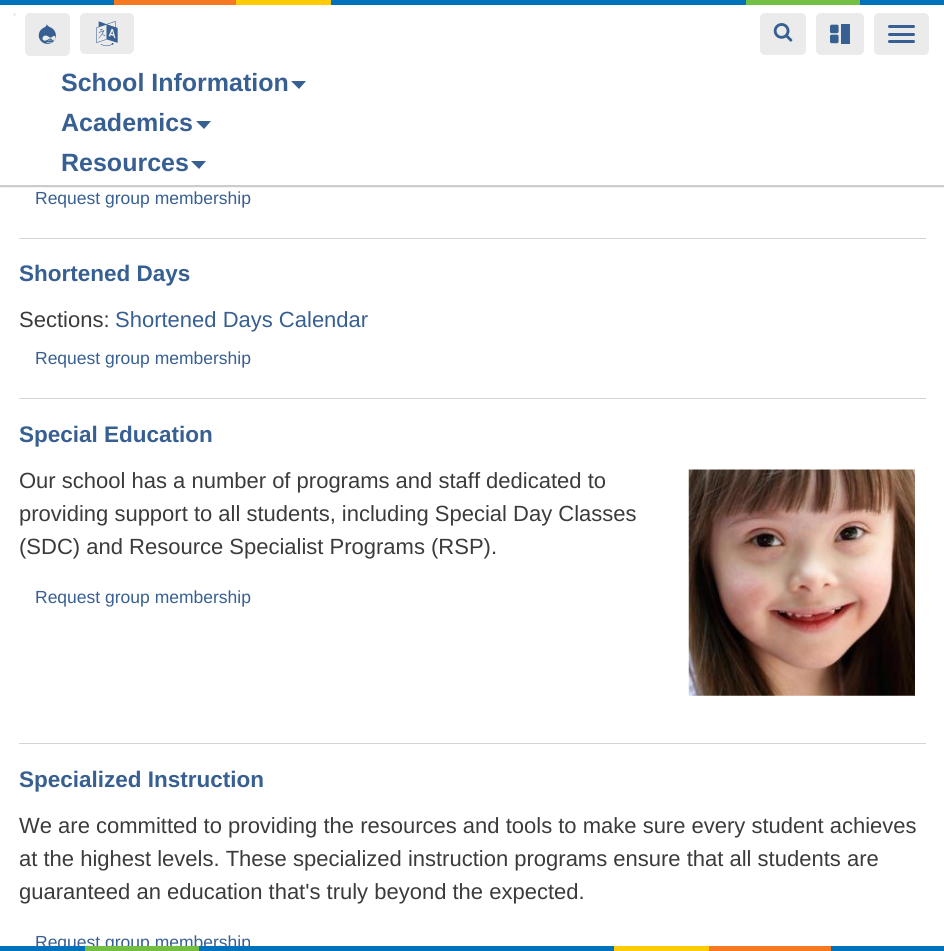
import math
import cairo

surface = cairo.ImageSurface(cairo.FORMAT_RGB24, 944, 951)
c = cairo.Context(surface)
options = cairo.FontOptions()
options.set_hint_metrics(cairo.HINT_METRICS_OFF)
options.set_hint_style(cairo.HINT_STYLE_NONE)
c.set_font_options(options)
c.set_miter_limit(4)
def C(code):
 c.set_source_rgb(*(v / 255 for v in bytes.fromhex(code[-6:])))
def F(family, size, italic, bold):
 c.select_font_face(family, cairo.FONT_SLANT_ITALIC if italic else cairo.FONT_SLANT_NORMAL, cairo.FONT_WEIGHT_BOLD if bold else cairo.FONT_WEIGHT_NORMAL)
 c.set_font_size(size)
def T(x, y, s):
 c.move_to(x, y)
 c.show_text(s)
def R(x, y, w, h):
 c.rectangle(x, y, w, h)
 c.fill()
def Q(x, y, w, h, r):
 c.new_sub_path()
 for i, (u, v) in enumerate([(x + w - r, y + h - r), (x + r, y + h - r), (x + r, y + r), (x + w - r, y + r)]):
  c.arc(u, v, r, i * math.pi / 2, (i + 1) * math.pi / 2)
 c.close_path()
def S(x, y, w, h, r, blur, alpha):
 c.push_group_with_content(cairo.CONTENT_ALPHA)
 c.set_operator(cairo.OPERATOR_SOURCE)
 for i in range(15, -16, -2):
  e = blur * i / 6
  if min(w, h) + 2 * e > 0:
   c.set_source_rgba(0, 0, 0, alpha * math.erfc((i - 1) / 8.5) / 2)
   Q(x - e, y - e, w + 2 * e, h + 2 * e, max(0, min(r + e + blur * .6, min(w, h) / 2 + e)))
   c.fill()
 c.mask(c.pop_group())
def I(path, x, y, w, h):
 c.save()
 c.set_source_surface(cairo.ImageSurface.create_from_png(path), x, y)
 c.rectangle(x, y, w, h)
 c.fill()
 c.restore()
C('ffffff')
c.paint()
c.save()
c.rectangle(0,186,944,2)
c.clip()
C('000000')
S(0,0,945,186,0,1,.6)
c.restore()
C('cccccc')
R(0,185,944,1)
C('0071bb')
R(0,0,944,5)
C('f47921')
R(114,0,122,5)
C('ffcb05')
R(236,0,95,5)
C('72bf44')
R(746,0,114,5)
C('ebebeb')
c.arc(14.5,14.5,1.5,0,2 * math.pi)
c.fill()
Q(25,13,45,43,5)
c.fill()
I('1.png',38,24,18,20)
Q(80,13,54,41,5)
c.fill()
I('2.png',96,21,22,26)
Q(760,13,46,42,5)
c.fill()
I('3.png',773,23,20,19)
Q(816,13,48,42,5)
c.fill()
I('4.png',830,24,9,10)
C('375f92')
R(841,24,9,20)
I('4.png',830,34,9,10)
C('ebebeb')
Q(874,13,55,42,5)
c.fill()
C('375f92')
Q(888,25,27,3,1.5)
c.fill()
Q(888,33,27,3,1.5)
c.fill()
Q(888,40,27,3,1.5)
c.fill()
F('Liberation Sans',25,0,1)
T(61,91,'School Information')
c.new_path()
c.move_to(291,81)
c.line_to(306,81)
c.line_to(299,89)
c.close_path()
c.fill()
T(61,131,'Academics')
c.new_path()
c.move_to(196,121)
c.line_to(211,121)
c.line_to(204,129)
c.close_path()
c.fill()
T(61,171,'Resources')
c.new_path()
c.move_to(191,161)
c.line_to(206,161)
c.line_to(199,169)
c.close_path()
c.fill()
C('d4d4d4')
R(19,238,907,1)
F('Liberation Sans',17.5,0,0)
C('375f92')
T(35,204,'Request group membership')
C('d4d4d4')
R(19,398,907,1)
F('Liberation Sans',22.5,0,1)
C('375f92')
T(19,281,'Shortened Days')
F('Liberation Sans',22,0,0)
C('3b3b3b')
T(19,327,'Sections:')
C('375f92')
T(115,327,'Shortened Days Calendar')
F('Liberation Sans',17.5,0,0)
T(35,364,'Request group membership')
C('d4d4d4')
R(19,743,907,1)
F('Liberation Sans',22.5,0,1)
C('375f92')
T(19,442,'Special Education')
F('Liberation Sans',22,0,0)
C('3b3b3b')
T(19,488,'Our school has a number of programs and staff dedicated to')
T(19,521,'providing support to all students, including Special Day Classes')
T(19,554,'(SDC) and Resource Specialist Programs (RSP).')
I('5.png',688,469,227,227)
F('Liberation Sans',17.5,0,0)
C('375f92')
T(35,603,'Request group membership')
F('Liberation Sans',22.5,0,1)
T(19,787,'Specialized Instruction')
F('Liberation Sans',22,0,0)
C('3b3b3b')
T(19,833,'We are committed to providing the resources and tools to make sure every student achieves')
T(19,866,'at the highest levels. These specialized instruction programs ensure that all students are')
T(19,899,'guaranteed an education that\'s truly beyond the expected.')
F('Liberation Sans',17.5,0,0)
C('375f92')
T(35,948,'Request group membership')
C('0071bb')
R(0,946,944,5)
C('f47921')
R(709,946,122,5)
C('ffcb05')
R(614,946,95,5)
C('72bf44')
R(85,946,114,5)
surface.write_to_png('o.png')
